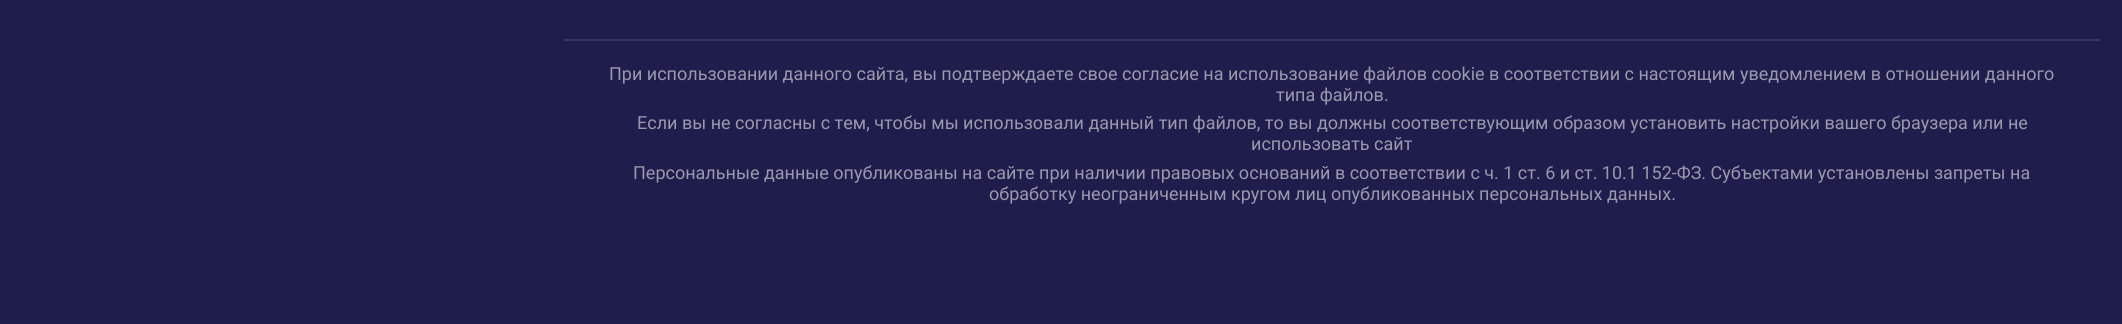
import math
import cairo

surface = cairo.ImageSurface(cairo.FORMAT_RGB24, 2122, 324)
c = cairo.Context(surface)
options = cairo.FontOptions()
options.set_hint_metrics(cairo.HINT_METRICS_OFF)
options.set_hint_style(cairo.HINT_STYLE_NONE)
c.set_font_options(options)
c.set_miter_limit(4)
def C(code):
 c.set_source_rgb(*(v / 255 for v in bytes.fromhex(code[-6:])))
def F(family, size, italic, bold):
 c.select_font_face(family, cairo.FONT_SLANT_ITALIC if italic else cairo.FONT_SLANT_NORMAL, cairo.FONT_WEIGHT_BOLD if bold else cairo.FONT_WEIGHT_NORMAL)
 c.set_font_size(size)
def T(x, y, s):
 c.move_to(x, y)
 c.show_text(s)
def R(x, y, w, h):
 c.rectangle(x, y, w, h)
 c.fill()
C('1f1d4c')
c.paint()
C('383660')
R(564,39,1536,2)
F('Roboto',18,0,0)
C('9998ad')
T(609,80,'При использовании данного сайта, вы подтверждаете свое согласие на использование файлов cookie в соответствии с настоящим уведомлением в отношении данного')
T(1276,101,'типа файлов.')
T(637,129,'Если вы не согласны с тем, чтобы мы использовали данный тип файлов, то вы должны соответствующим образом установить настройки вашего браузера или не')
T(1251,150,'использовать сайт')
T(633,179,'Персональные данные опубликованы на сайте при наличии правовых оснований в соответствии с ч. 1 ст. 6 и ст. 10.1 152-ФЗ. Субъектами установлены запреты на')
T(989,200,'обработку неограниченным кругом лиц опубликованных персональных данных.')
surface.write_to_png('o.png')
